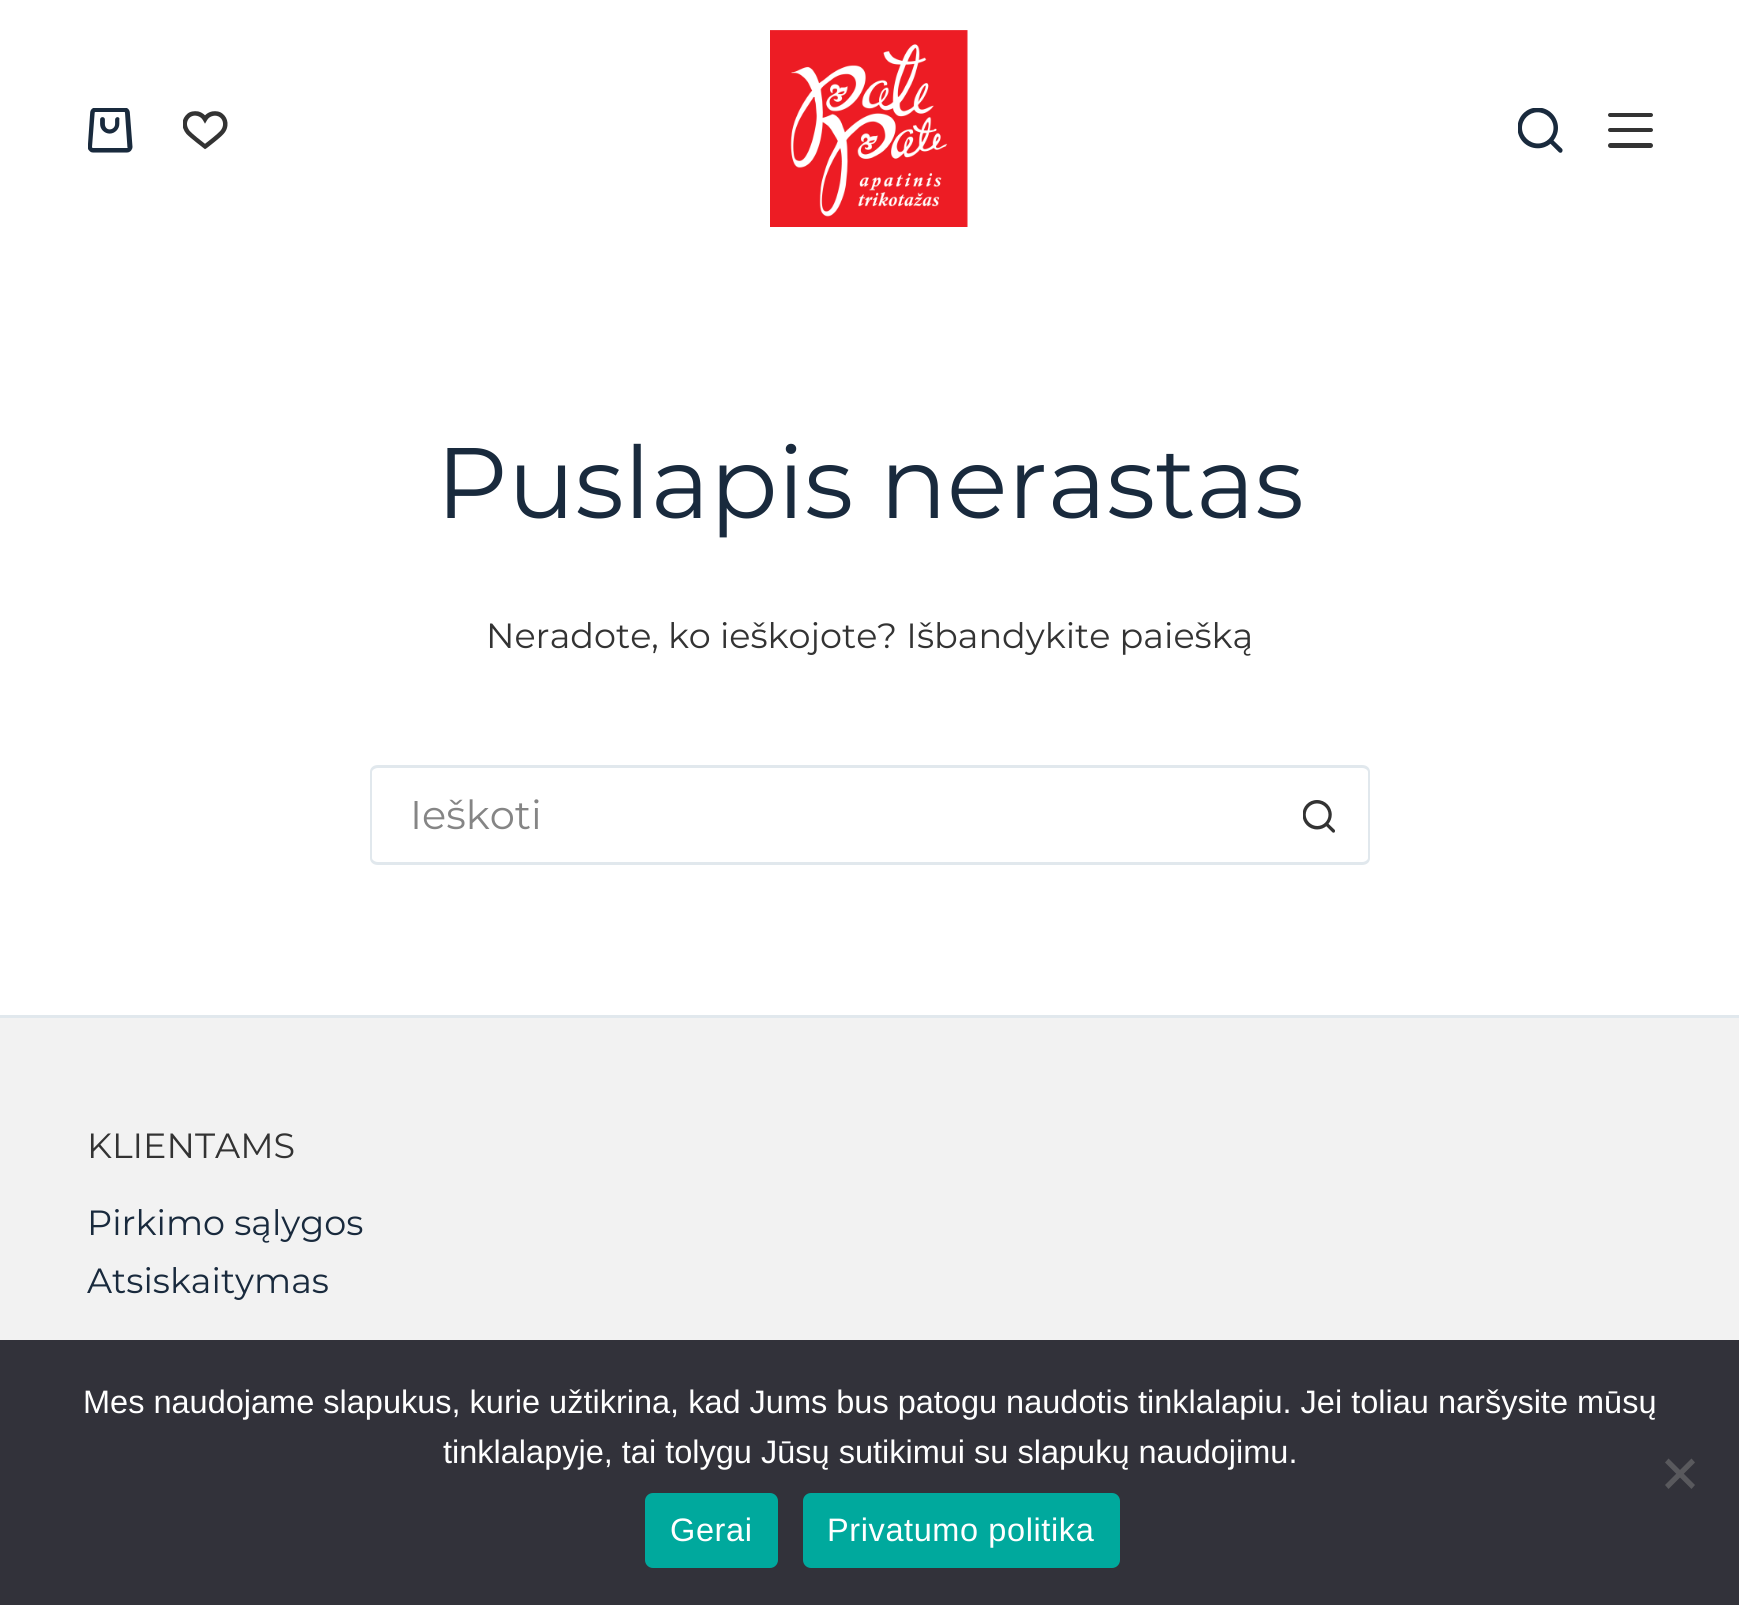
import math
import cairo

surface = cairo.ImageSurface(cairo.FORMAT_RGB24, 1739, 1605)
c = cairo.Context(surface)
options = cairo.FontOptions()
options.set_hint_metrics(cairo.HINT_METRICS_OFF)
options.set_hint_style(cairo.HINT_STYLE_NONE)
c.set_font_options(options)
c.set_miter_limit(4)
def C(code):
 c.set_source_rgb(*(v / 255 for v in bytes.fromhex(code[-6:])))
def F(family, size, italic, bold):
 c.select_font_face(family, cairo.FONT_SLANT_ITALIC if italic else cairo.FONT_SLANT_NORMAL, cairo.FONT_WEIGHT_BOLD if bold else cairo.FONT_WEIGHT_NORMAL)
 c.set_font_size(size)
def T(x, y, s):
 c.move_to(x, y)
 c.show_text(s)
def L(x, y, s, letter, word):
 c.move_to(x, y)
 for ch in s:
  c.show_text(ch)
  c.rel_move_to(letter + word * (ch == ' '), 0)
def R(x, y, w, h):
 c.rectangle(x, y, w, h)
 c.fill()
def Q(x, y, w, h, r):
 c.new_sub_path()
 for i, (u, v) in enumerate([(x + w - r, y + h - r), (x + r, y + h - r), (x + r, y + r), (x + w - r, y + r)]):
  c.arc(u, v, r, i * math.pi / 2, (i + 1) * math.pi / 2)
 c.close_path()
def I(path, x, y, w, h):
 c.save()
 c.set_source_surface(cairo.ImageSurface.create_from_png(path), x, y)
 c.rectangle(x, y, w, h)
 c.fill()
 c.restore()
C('ffffff')
c.paint()
I('1.png',88,108,45,45)
I('2.png',183,111,45,39)
I('3.png',770,30,198,197)
I('4.png',1518,108,45,45)
C('333333')
Q(1608,113,45,4,2)
c.fill()
Q(1608,128,45,4,2)
c.fill()
Q(1608,143,45,5,2.5)
c.fill()
F('Montserrat',100,0,0)
C('192a3d')
T(436,518,'Puslapis nerastas')
F('Montserrat',35,0,0)
C('333333')
T(486,648,'Neradote, ko ieškojote? Išbandykite paiešką')
C('e1e8ed')
c.set_fill_rule(cairo.FILL_RULE_EVEN_ODD)
c.new_path()
c.move_to(378,765)
c.line_to(1270,765)
c.line_to(1270,865)
c.line_to(378,865)
c.curve_to(373,865,370,862,370,858)
c.line_to(370,772)
c.curve_to(370,768,373,765,378,765)
c.close_path()
c.move_to(378,768)
c.line_to(1270,768)
c.line_to(1270,862)
c.line_to(378,862)
c.curve_to(375,862,372,860,372,858)
c.line_to(372,772)
c.curve_to(372,770,375,768,378,768)
c.close_path()
c.fill()
F('Montserrat',40,0,0)
C('858585')
T(410,829,'Ieškoti')
C('e1e8ed')
c.new_path()
c.move_to(1270,765)
c.line_to(1362,765)
c.curve_to(1367,765,1370,768,1370,772)
c.line_to(1370,858)
c.curve_to(1370,862,1367,865,1362,865)
c.line_to(1270,865)
c.close_path()
c.move_to(1270,768)
c.line_to(1362,768)
c.curve_to(1365,768,1368,770,1368,772)
c.line_to(1368,858)
c.curve_to(1368,860,1365,862,1362,862)
c.line_to(1270,862)
c.close_path()
c.fill()
I('5.png',1303,800,32,33)
C('f2f2f2')
R(0,1018,1739,322)
C('e1e8ed')
R(0,1015,1739,3)
F('Montserrat',35,0,0)
C('333333')
T(87,1158,'KLIENTAMS')
C('192a3d')
T(87,1235,'Pirkimo sąlygos')
T(87,1293,'Atsiskaitymas')
C('32323a')
R(0,1340,1739,265)
F('Liberation Sans',32.5,0,0)
C('ffffff')
T(83,1413,'Mes naudojame slapukus, kurie užtikrina, kad Jums bus patogu naudotis tinklalapiu. Jei toliau naršysite mūsų')
T(443,1463,'tinklalapyje, tai tolygu Jūsų sutikimui su slapukų naudojimu.')
C('59595d')
c.set_fill_rule(cairo.FILL_RULE_WINDING)
c.new_path()
c.move_to(1691.5,1458.5)
c.line_to(1695,1462.5)
c.line_to(1668.5,1489)
c.line_to(1665,1485)
c.close_path()
c.fill()
c.new_path()
c.move_to(1665,1462.5)
c.line_to(1668.5,1458.5)
c.line_to(1695,1485)
c.line_to(1691.5,1489)
c.close_path()
c.fill()
C('00a99d')
Q(645,1493,133,75,8)
c.fill()
C('ffffff')
L(670,1541,'Gerai',.6,0)
C('00a99d')
Q(803,1493,317,75,8)
c.fill()
C('ffffff')
L(827,1541,'Privatumo politika',.6,0)
surface.write_to_png('o.png')
